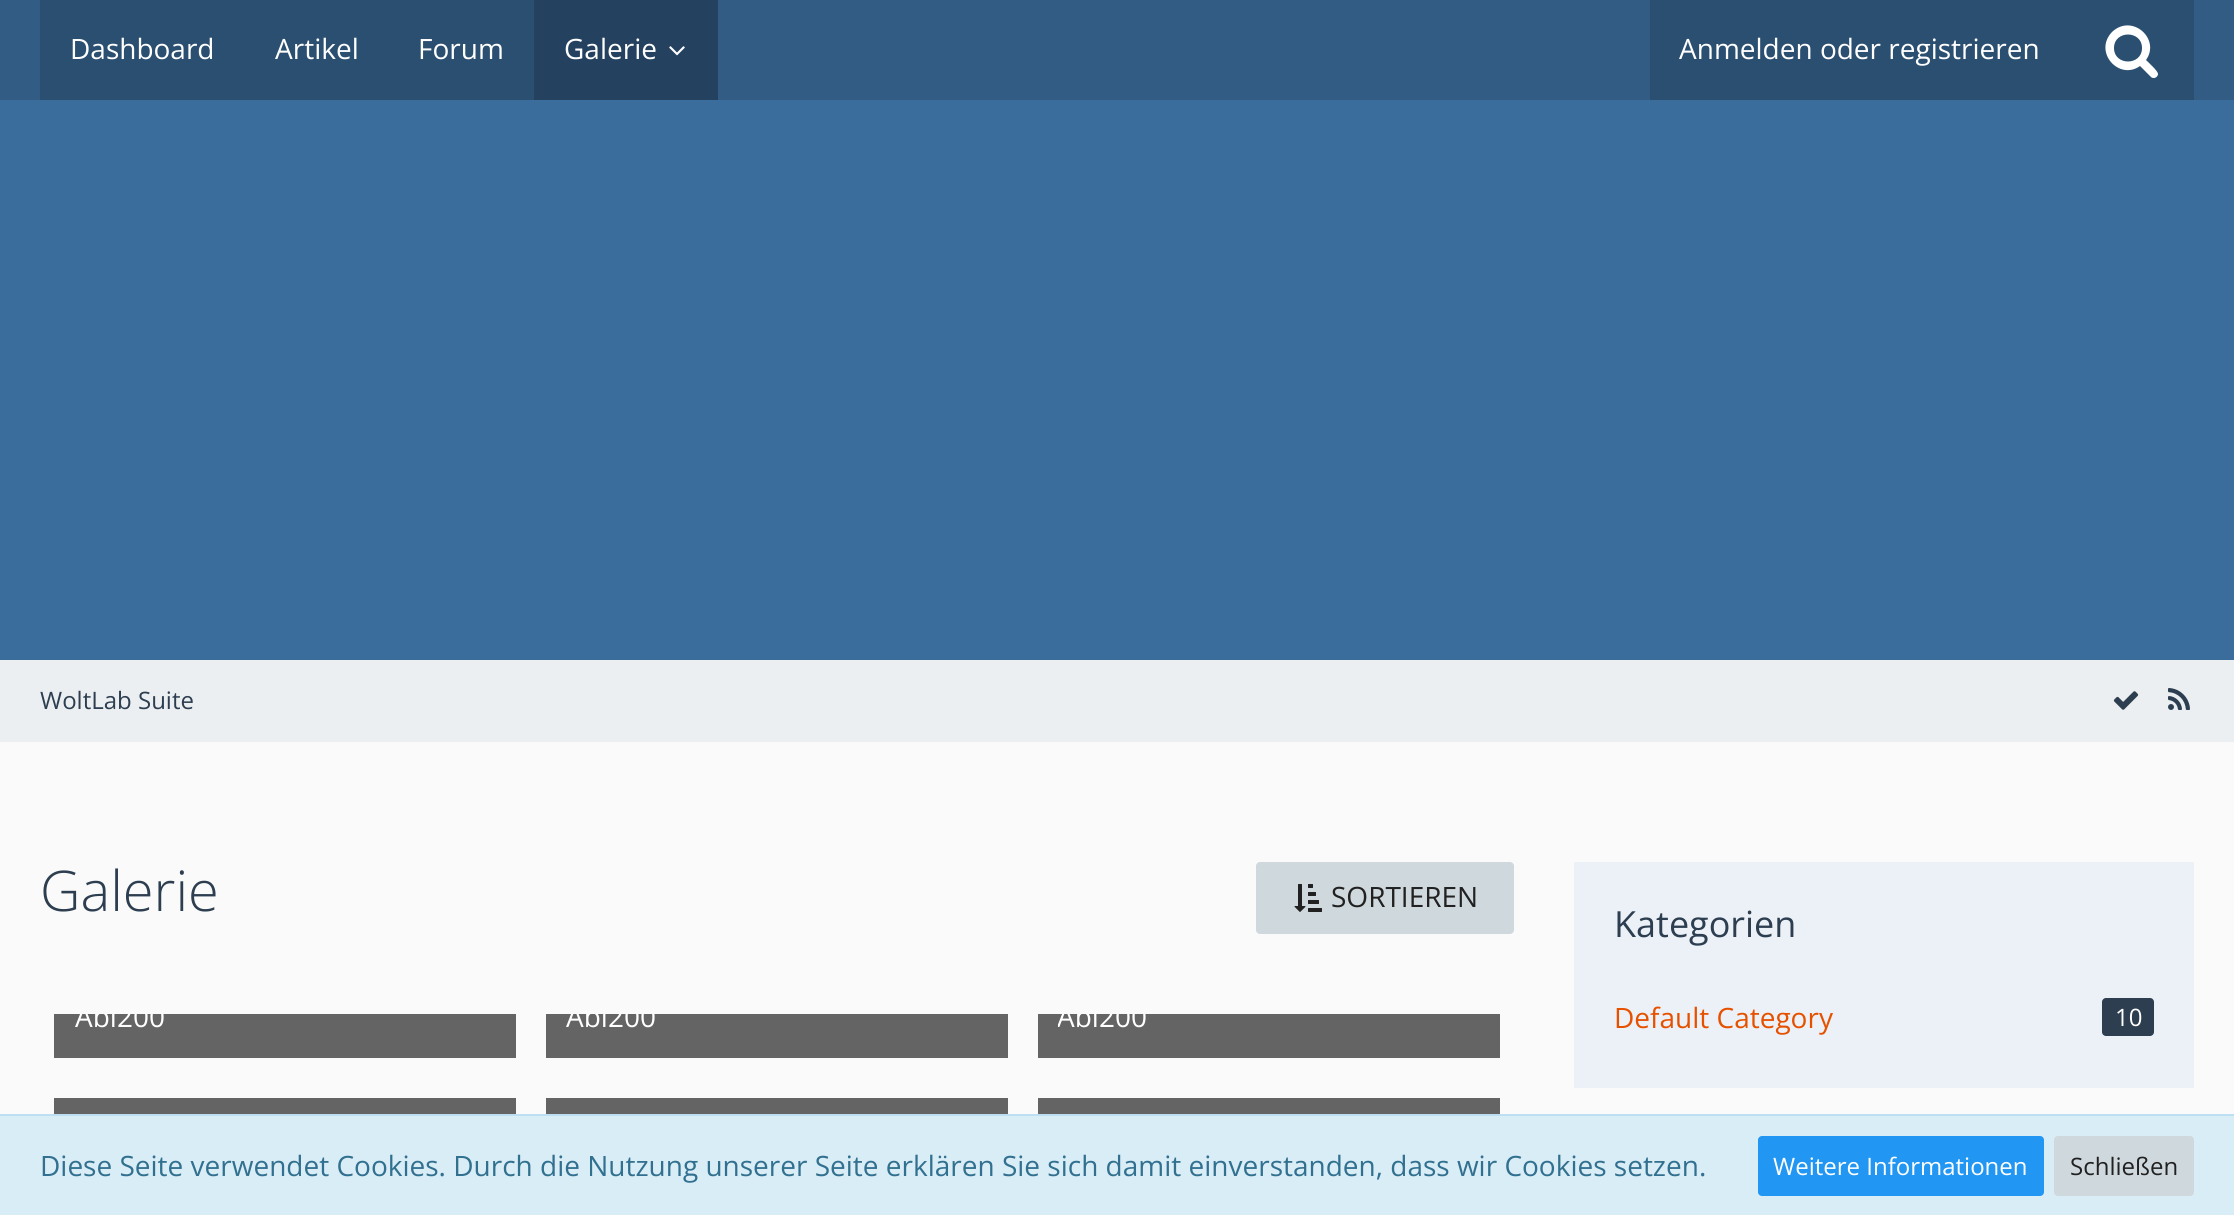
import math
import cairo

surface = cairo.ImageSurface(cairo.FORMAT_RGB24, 2234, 1215)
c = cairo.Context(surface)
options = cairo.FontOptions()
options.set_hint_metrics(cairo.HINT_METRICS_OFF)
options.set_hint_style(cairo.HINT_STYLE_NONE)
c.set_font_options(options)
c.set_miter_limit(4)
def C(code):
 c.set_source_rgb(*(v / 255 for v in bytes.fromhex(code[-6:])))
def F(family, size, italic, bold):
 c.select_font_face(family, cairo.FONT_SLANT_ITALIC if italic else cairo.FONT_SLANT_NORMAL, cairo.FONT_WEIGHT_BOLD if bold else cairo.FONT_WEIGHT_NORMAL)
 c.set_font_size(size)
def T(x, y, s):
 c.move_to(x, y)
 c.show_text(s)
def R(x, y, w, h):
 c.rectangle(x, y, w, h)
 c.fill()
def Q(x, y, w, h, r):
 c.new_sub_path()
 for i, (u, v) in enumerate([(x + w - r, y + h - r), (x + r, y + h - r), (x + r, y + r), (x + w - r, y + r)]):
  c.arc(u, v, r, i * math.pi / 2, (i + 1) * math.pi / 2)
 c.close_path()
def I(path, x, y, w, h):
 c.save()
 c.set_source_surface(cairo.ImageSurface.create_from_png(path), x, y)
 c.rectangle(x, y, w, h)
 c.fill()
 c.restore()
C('fafafa')
c.paint()
C('3a6d9c')
R(0,100,2234,560)
C('325c84')
R(0,0,2234,100)
C('2b4f71')
R(40,0,494,100)
F('Open Sans',28,0,0)
C('ffffff')
T(70,59,'Dashboard')
T(275,59,'Artikel')
T(418,59,'Forum')
C('24425f')
R(534,0,184,100)
C('ffffff')
T(564,59,'Galerie')
I('1.png',669,46,16,10)
C('2b4f71')
R(1650,0,544,100)
C('ffffff')
T(1679,59,'Anmelden oder registrieren')
c.new_path()
c.move_to(2142,48)
c.curve_to(2142,66,2114,66,2114,48)
c.curve_to(2114,30,2142,30,2142,48)
c.close_path()
c.move_to(2158,74)
c.curve_to(2158,71,2149,63,2146,60)
c.curve_to(2161,39,2132,13,2112,32)
c.curve_to(2093,52,2119,81,2140,66)
c.line_to(2151,77)
c.curve_to(2152,78,2153,78,2154,78)
c.curve_to(2156,78,2158,76,2158,74)
c.close_path()
c.fill()
C('eceff1')
R(0,660,2234,82)
F('Open Sans',24,0,0)
C('2c3e50')
T(40,709,'WoltLab Suite')
I('2.png',2113,691,26,19)
I('3.png',2168,688,22,22)
F('Open Sans Light',56,0,0)
T(40,911,'Galerie')
C('cfd8dc')
Q(1256,862,258,72,4)
c.fill()
I('4.png',1294,884,28,28)
F('Open Sans',28,0,0)
C('212121')
T(1331,907,'SORTIEREN')
C('646464')
R(54,1014,462,44)
c.save()
c.rectangle(74,1014,378,24)
c.clip()
C('ffffff')
T(75,1027,'Abi200')
c.restore()
R(546,1014,462,44)
c.save()
c.rectangle(566,1014,378,24)
c.clip()
C('ffffff')
T(566,1027,'Abi200')
c.restore()
R(1038,1014,462,44)
c.save()
c.rectangle(1058,1014,378,24)
c.clip()
C('ffffff')
T(1057,1027,'Abi200')
c.restore()
R(54,1098,462,16)
R(546,1098,462,16)
R(1038,1098,462,16)
C('ecf1f7')
R(1574,862,620,226)
F('Open Sans',36,0,0)
C('2c3e50')
T(1614,937,'Kategorien')
F('Open Sans',28,0,0)
C('e65100')
T(1614,1028,'Default Category')
C('2c3e50')
Q(2102,998,52,38,4)
c.fill()
F('Open Sans',24,0,0)
C('ffffff')
T(2115,1026,'10')
C('d9edf7')
R(0,1116,2234,99)
C('bcdff1')
R(0,1114,2234,2)
F('Open Sans',28,0,0)
C('31708f')
T(40,1176,'Diese Seite verwendet Cookies. Durch die Nutzung unserer Seite erklären Sie sich damit einverstanden, dass wir Cookies setzen.')
C('2196f3')
Q(1758,1136,286,60,4)
c.fill()
F('Open Sans',24,0,0)
C('ffffff')
T(1773,1175,'Weitere Informationen')
C('cfd8dc')
Q(2054,1136,140,60,4)
c.fill()
C('212121')
T(2070,1175,'Schließen')
surface.write_to_png('o.png')
